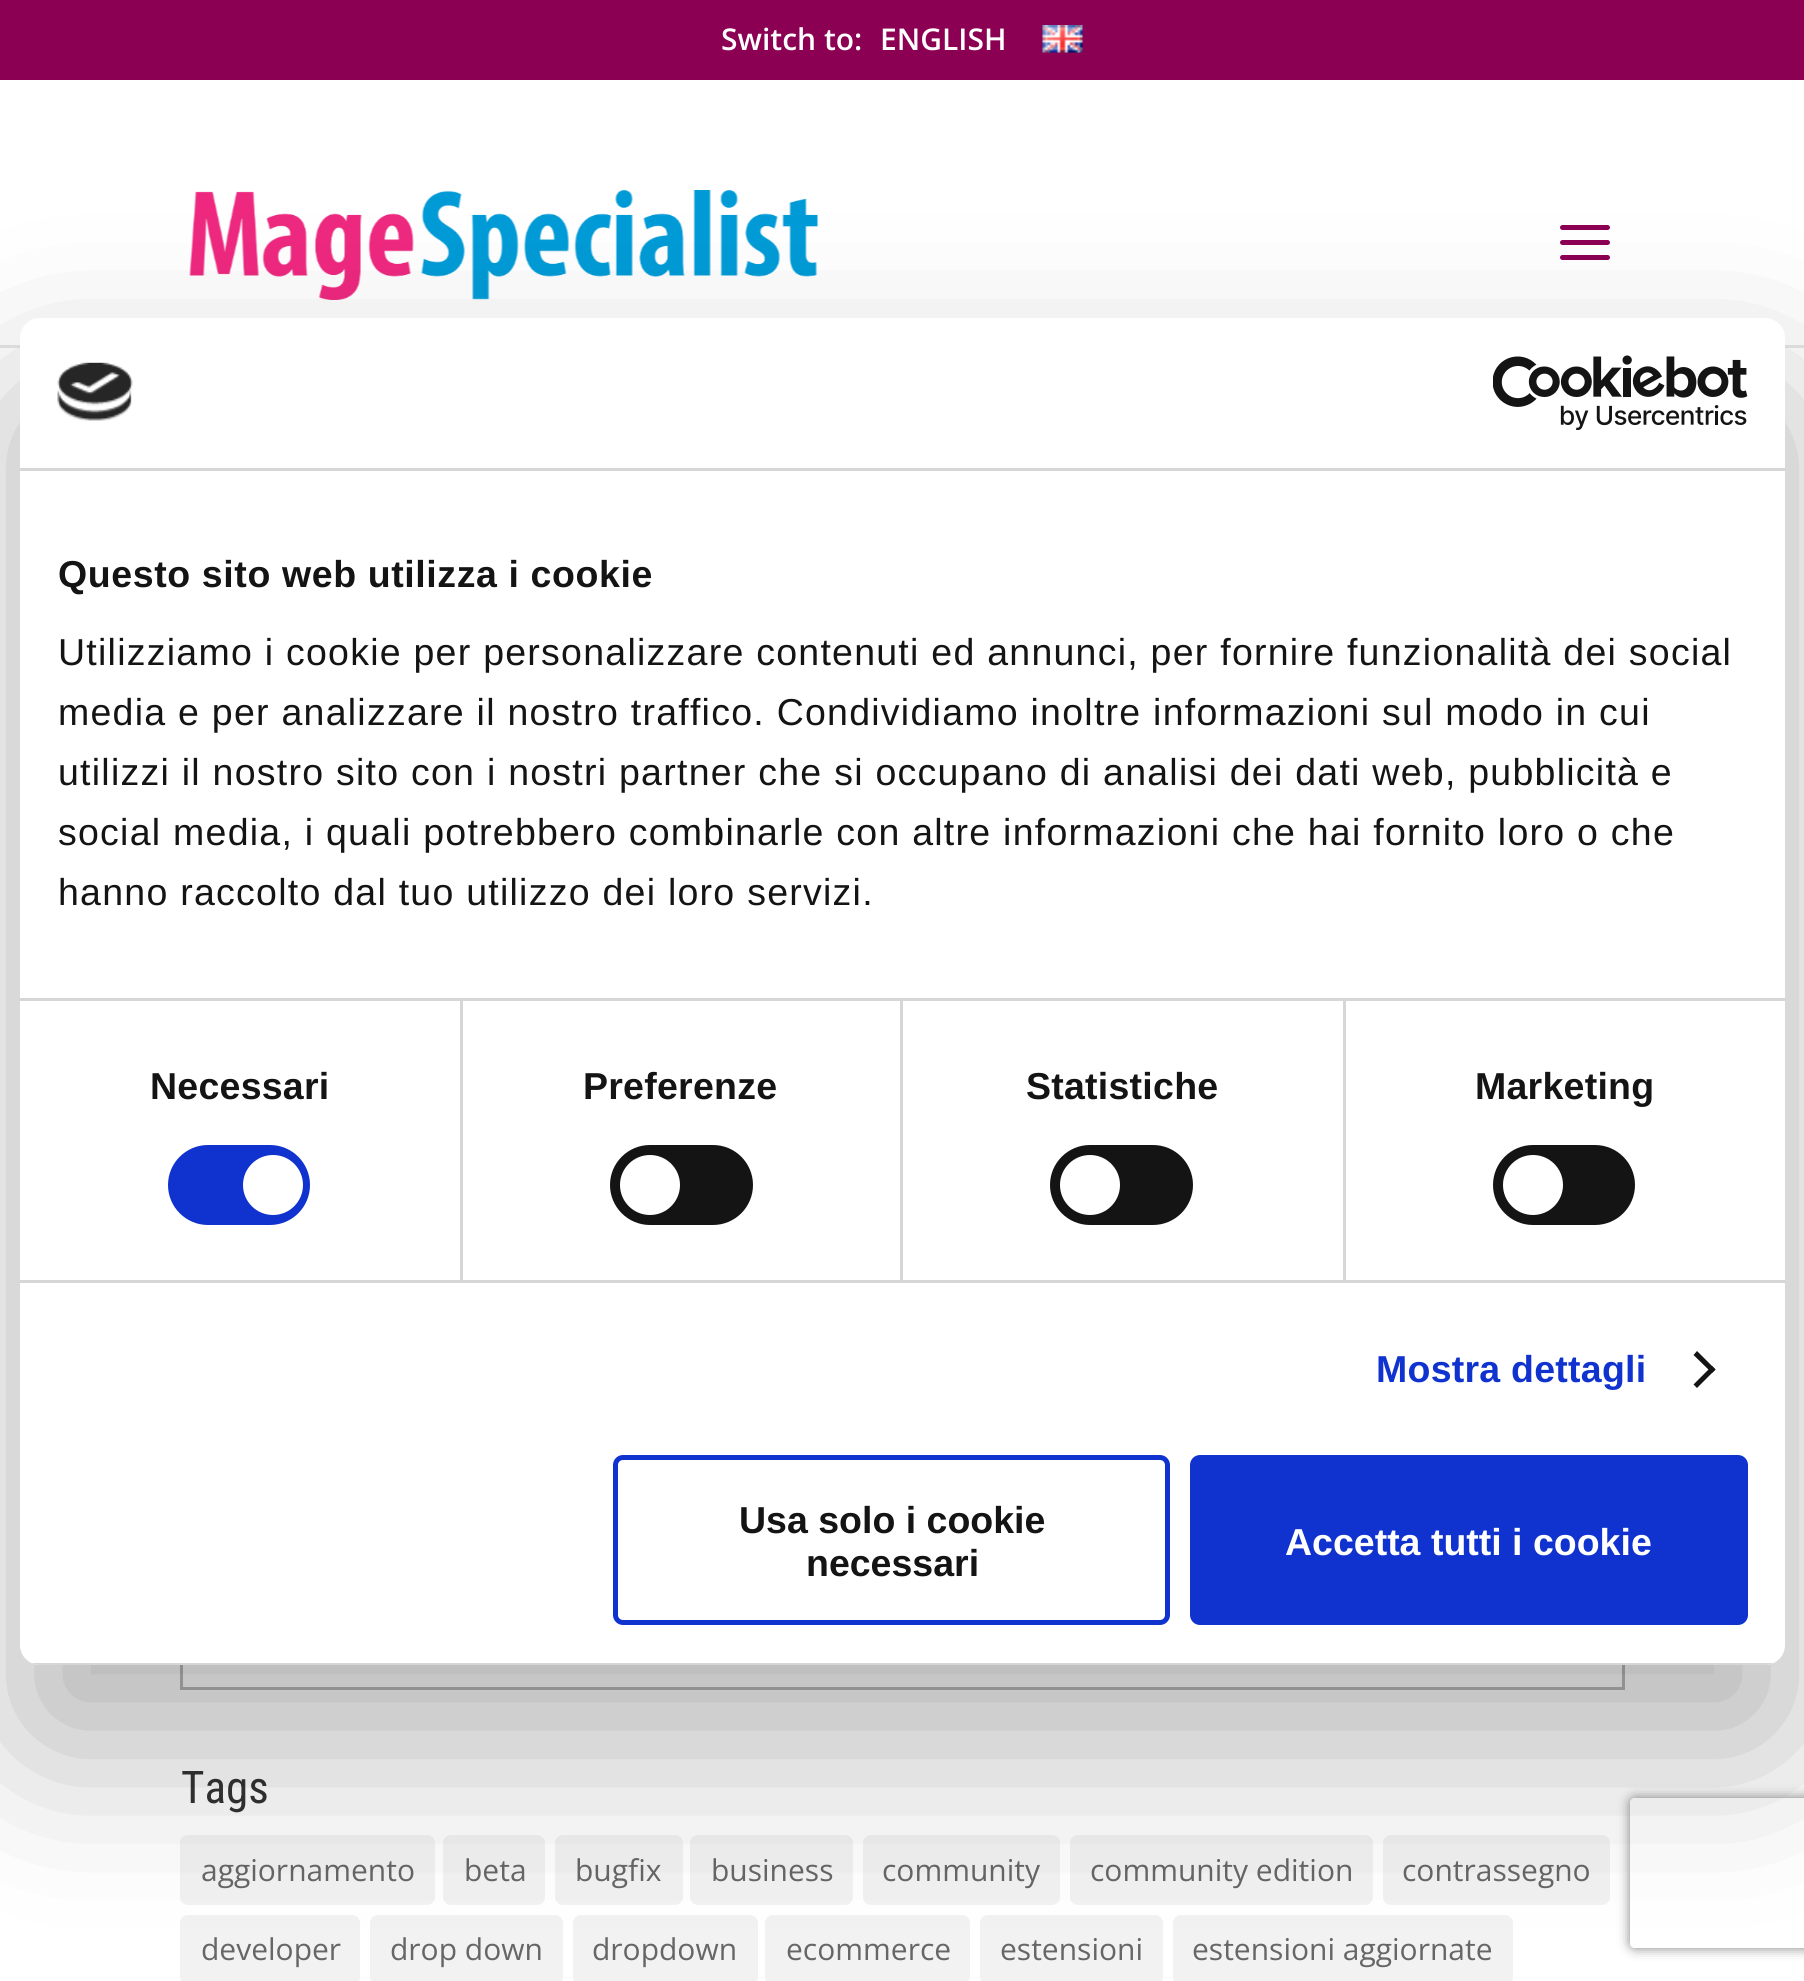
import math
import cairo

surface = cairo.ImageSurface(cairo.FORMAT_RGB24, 1804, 1981)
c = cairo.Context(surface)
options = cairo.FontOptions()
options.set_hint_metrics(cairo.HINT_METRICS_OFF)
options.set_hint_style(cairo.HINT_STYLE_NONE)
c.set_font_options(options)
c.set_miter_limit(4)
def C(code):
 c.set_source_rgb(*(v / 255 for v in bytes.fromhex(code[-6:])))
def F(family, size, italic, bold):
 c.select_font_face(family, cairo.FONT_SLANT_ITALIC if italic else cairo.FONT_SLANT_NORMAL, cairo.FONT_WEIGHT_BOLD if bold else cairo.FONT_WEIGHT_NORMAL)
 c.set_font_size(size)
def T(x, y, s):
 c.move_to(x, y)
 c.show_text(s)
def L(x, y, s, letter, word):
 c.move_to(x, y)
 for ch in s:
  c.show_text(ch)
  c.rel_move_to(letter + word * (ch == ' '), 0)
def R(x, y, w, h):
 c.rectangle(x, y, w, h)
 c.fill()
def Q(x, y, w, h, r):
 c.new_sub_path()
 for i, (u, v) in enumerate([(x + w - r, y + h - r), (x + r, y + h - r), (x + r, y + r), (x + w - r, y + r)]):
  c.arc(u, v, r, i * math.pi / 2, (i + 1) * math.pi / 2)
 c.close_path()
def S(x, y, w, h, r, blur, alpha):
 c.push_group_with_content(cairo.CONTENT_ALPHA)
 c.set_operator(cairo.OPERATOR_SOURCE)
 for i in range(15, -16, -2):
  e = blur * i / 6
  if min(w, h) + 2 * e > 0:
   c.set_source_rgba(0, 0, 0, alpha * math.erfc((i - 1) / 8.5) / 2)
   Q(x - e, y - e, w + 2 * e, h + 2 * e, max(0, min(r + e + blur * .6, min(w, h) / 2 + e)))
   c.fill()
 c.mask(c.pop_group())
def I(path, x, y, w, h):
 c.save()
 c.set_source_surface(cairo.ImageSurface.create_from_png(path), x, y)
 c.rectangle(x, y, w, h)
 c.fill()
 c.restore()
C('ffffff')
c.paint()
C('8c0053')
R(0,0,1804,80)
F('Open Sans SemiBold',30,0,0)
C('ffffff')
T(721,50,'Switch to:')
T(880,50,'ENGLISH')
I('1.png',1042,25,41,28)
c.set_source_rgba(0,0,0,0.1)
R(0,345,1804,3)
I('2.png',189,190,629,110)
I('3.png',1560,225,50,35)
c.rectangle(181.5,1621.5,1442,67)
C('bbbbbb')
c.set_line_width(3)
c.stroke()
F('Roboto Condensed',45,0,0)
C('333333')
T(181,1803,'Tags')
C('f2f2f2')
Q(180,1835,255,70,8)
c.fill()
F('Open Sans',30,0,0)
C('666666')
T(201,1881,'aggiornamento')
C('f2f2f2')
Q(443,1835,102,70,8)
c.fill()
C('666666')
T(464,1881,'beta')
C('f2f2f2')
Q(555,1835,128,70,8)
c.fill()
C('666666')
T(575,1881,'bugfix')
C('f2f2f2')
Q(690,1835,163,70,8)
c.fill()
C('666666')
T(711,1881,'business')
C('f2f2f2')
Q(863,1835,197,70,8)
c.fill()
C('666666')
T(882,1881,'community')
C('f2f2f2')
Q(1070,1835,303,70,8)
c.fill()
C('666666')
T(1090,1881,'community edition')
C('f2f2f2')
Q(1383,1835,227,70,8)
c.fill()
C('666666')
T(1402,1881,'contrassegno')
C('f2f2f2')
Q(180,1915,180,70,8)
c.fill()
C('666666')
T(201,1960,'developer')
C('f2f2f2')
Q(370,1915,193,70,8)
c.fill()
C('666666')
T(390,1960,'drop down')
C('f2f2f2')
Q(573,1915,185,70,8)
c.fill()
C('666666')
T(592,1960,'dropdown')
C('f2f2f2')
Q(765,1915,205,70,8)
c.fill()
C('666666')
T(786,1960,'ecommerce')
C('f2f2f2')
Q(980,1915,183,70,8)
c.fill()
C('666666')
T(1000,1960,'estensioni')
C('f2f2f2')
Q(1173,1915,340,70,8)
c.fill()
C('666666')
T(1192,1960,'estensioni aggiornate')
C('000000')
S(20,398,1765,1347,20,85,.3)
C('ffffff')
Q(20,318,1765,1347,20)
c.fill()
C('d6d6d6')
R(20,468,1765,3)
I('4.png',57,362,76,59)
I('5.png',1493,355,255,75)
R(460,1000,3,280)
R(900,1000,3,280)
R(1343,1000,3,280)
R(20,998,1765,3)
F('Liberation Sans',37.5,0,1)
C('141414')
L(58,587,'Questo sito web utilizza i cookie',.6,0)
F('Liberation Sans',37.5,0,0)
L(58,665,'Utilizziamo i cookie per personalizzare contenuti ed annunci, per fornire funzionalità dei social',1.25,0)
L(58,725,'media e per analizzare il nostro traffico. Condividiamo inoltre informazioni sul modo in cui',1.25,0)
L(58,785,'utilizzi il nostro sito con i nostri partner che si occupano di analisi dei dati web, pubblicità e',1.25,0)
L(58,845,'social media, i quali potrebbero combinarle con altre informazioni che hai fornito loro o che',1.25,0)
L(58,905,'hanno raccolto dal tuo utilizzo dei loro servizi.',1.25,0)
C('d6d6d6')
R(20,1280,1765,3)
F('Liberation Sans',37.5,0,1)
C('141414')
L(150,1099,'Necessari',.25,0)
C('1032cf')
Q(168,1145,142,80,40)
c.fill()
C('ffffff')
c.arc(273,1185,30,0,2 * math.pi)
c.fill()
C('141414')
L(583,1099,'Preferenze',.25,0)
Q(610,1145,143,80,40)
c.fill()
C('ffffff')
c.arc(650,1185,30,0,2 * math.pi)
c.fill()
C('141414')
L(1026,1099,'Statistiche',.25,0)
Q(1050,1145,143,80,40)
c.fill()
C('ffffff')
c.arc(1090,1185,30,0,2 * math.pi)
c.fill()
C('141414')
L(1475,1099,'Marketing',.25,0)
Q(1493,1145,142,80,40)
c.fill()
C('ffffff')
c.arc(1533,1185,30,0,2 * math.pi)
c.fill()
C('1032cf')
L(1376,1382,'Mostra dettagli',.25,0)
C('141414')
c.new_path()
c.move_to(1697,1351)
c.line_to(1715.5,1369.5)
c.line_to(1712,1373)
c.line_to(1693.5,1355)
c.close_path()
c.fill()
c.new_path()
c.move_to(1712,1366)
c.line_to(1715.5,1369.5)
c.line_to(1697,1388)
c.line_to(1693.5,1384.5)
c.close_path()
c.fill()
c.save()
Q(20,318,1765,1347,20)
c.clip()
C('d6d6d6')
R(31,1663,1743,2)
c.restore()
Q(615.5,1457.5,552,165,7.5)
C('1032cf')
c.set_line_width(5)
c.stroke()
C('141414')
T(739,1533,'Usa solo i cookie')
T(806,1576,'necessari')
C('1032cf')
Q(1192.5,1457.5,553,165,7.5)
c.fill_preserve()
c.stroke()
C('ffffff')
T(1285,1555,'Accetta tutti i cookie')
c.save()
c.set_fill_rule(cairo.FILL_RULE_EVEN_ODD)
c.new_path()
c.move_to(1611,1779)
c.line_to(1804,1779)
c.line_to(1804,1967)
c.line_to(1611,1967)
c.close_path()
c.move_to(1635,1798)
c.line_to(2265,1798)
c.curve_to(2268,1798,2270,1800,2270,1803)
c.line_to(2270,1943)
c.curve_to(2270,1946,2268,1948,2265,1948)
c.line_to(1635,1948)
c.curve_to(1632,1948,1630,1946,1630,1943)
c.line_to(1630,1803)
c.curve_to(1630,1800,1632,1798,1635,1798)
c.close_path()
c.clip()
C('808080')
S(1630,1798,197,150,5,6,1)
c.restore()
surface.write_to_png('o.png')
